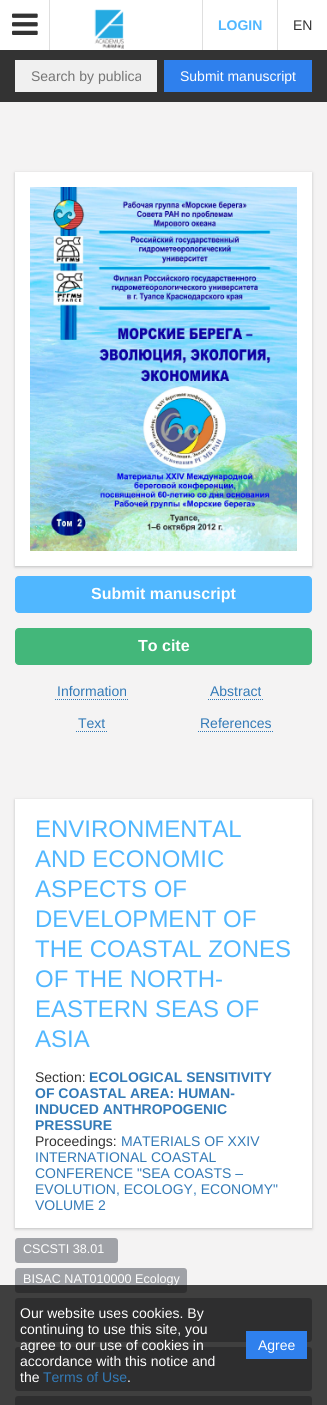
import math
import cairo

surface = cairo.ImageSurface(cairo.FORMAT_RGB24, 327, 1405)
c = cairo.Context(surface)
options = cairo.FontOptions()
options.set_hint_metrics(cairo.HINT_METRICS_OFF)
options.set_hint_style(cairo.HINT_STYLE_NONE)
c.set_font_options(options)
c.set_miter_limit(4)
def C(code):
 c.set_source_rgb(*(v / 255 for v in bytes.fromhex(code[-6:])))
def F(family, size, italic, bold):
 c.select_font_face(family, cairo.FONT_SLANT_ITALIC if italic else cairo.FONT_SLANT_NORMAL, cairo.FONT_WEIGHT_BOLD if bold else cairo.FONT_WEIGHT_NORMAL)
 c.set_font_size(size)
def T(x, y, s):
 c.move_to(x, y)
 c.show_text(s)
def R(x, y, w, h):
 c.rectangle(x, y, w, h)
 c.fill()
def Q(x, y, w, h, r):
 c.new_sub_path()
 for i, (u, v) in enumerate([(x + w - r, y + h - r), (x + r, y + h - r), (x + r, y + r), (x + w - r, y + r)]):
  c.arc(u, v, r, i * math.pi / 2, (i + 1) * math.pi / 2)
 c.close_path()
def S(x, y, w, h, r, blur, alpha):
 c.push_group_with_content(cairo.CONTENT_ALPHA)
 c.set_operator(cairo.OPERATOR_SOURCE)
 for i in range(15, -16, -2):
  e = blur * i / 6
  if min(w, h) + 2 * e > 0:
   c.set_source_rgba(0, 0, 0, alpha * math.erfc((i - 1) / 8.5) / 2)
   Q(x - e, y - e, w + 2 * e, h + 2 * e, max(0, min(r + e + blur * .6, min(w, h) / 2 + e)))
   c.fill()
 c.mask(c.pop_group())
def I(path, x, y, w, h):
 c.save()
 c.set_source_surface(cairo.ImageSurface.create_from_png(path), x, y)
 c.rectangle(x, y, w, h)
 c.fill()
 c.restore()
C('f4f3f3')
c.paint()
C('ffffff')
R(0,0,327,50)
C('dfdfdf')
R(49,0,1,50)
I('1.png',12,13,26,22)
I('2.png',94,9,30,40)
R(202,0,1,50)
F('Liberation Sans',14,0,1)
C('50b7ff')
T(218,30,'LOGIN')
C('dfdfdf')
R(277,0,1,50)
F('Liberation Sans',14,0,0)
C('333333')
T(293,30,'EN')
R(0,50,327,52)
C('f0f0f0')
R(15,60,142,32)
c.save()
c.rectangle(31,68,110,16)
c.clip()
C('757575')
T(31,81,'Search by publica')
c.restore()
C('2f80ed')
R(164,60,148,32)
C('ffffff')
T(180,81,'Submit manuscript')
C('bfbfbf')
S(15,173,297,394,0,1.5,1)
C('ffffff')
R(15,172,297,394)
I('3.png',30,187,267,364)
C('50b7ff')
Q(15.5,576.5,296,36,3.5)
c.fill_preserve()
c.set_line_width(1)
c.stroke()
F('Liberation Sans',16,0,1)
C('ffffff')
T(91,599,'Submit manuscript')
C('43b77a')
Q(15.5,628.5,296,36,3.5)
c.fill_preserve()
c.stroke()
C('ffffff')
T(138,651,'To cite')
F('Liberation Sans',14,0,0)
C('337ab7')
T(57,696,'Information')
c.new_path()
c.move_to(55,699.5)
c.line_to(129,699.5)
c.set_dash([1,1])
c.stroke()
T(210,696,'Abstract')
c.new_path()
c.move_to(208,699.5)
c.line_to(263,699.5)
c.stroke()
T(78,728,'Text')
c.new_path()
c.move_to(76,731.5)
c.line_to(107,731.5)
c.stroke()
T(200,728,'References')
c.new_path()
c.move_to(198,731.5)
c.line_to(273,731.5)
c.stroke()
C('bfbfbf')
S(15,800,297,429,0,1.5,1)
C('ffffff')
R(15,799,297,429)
F('Liberation Sans',24,0,0)
C('50b7ff')
T(35,837,'ENVIRONMENTAL')
T(35,867,'AND ECONOMIC')
T(35,897,'ASPECTS OF')
T(35,927,'DEVELOPMENT OF')
T(35,957,'THE COASTAL ZONES')
T(35,987,'OF THE NORTH-')
T(35,1017,'EASTERN SEAS OF')
T(35,1047,'ASIA')
F('Liberation Sans',14,0,0)
C('333333')
T(35,1082,'Section:')
F('Liberation Sans',14,0,1)
C('337ab7')
T(89,1082,'ECOLOGICAL SENSITIVITY')
T(35,1098,'OF COASTAL AREA: HUMAN-')
T(35,1114,'INDUCED ANTHROPOGENIC')
T(35,1130,'PRESSURE')
F('Liberation Sans',14,0,0)
C('333333')
T(35,1146,'Proceedings:')
C('337ab7')
T(121,1146,'MATERIALS OF XXIV')
T(35,1162,'INTERNATIONAL COASTAL')
T(35,1178,'CONFERENCE "SEA COASTS –')
T(35,1194,'EVOLUTION, ECOLOGY, ECONOMY"')
T(35,1210,'VOLUME 2')
C('a0a2a7')
Q(15,1238,103,25,3)
c.fill()
F('Liberation Sans',12.6,0,0)
C('ffffff')
T(23,1253,'CSCSTI 38.01')
C('a0a2a7')
Q(15,1268,172,25,3)
c.fill()
C('ffffff')
T(23,1283,'BISAC NAT010000 Ecology')
C('a0a2a7')
Q(15,1298,297,44,3)
c.fill()
Q(15,1347,297,44,3)
c.fill()
Q(15,1396,297,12,3)
c.fill()
c.set_source_rgba(0.071,0.071,0.071,0.8)
R(0,1285,327,120)
F('Liberation Sans',14,0,0)
C('ffffff')
T(20,1318,'Our website uses cookies. By')
T(20,1334,'continuing to use this site, you')
T(20,1350,'agree to our use of cookies in')
T(20,1366,'accordance with this notice and')
T(20,1382,'the')
C('337ab7')
T(43,1382,'Terms of Use')
C('ffffff')
T(127,1382,'.')
C('2f80ed')
R(246,1331,61,28)
C('ffffff')
T(258,1350,'Agree')
surface.write_to_png('o.png')
